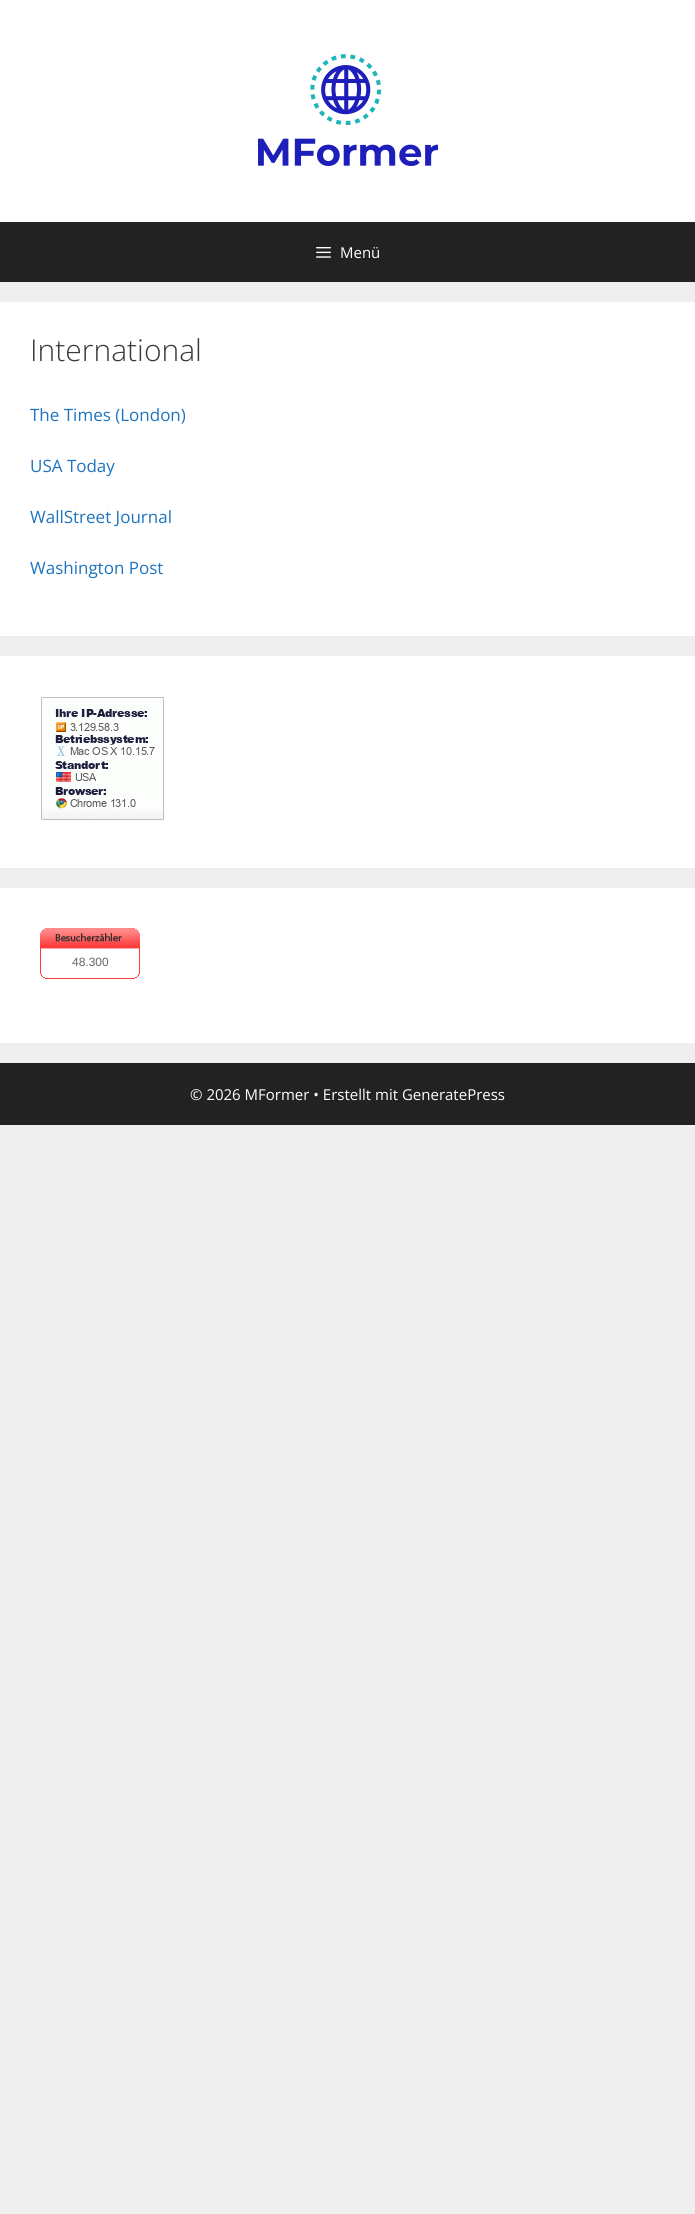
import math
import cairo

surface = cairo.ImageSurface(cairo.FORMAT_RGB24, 695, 2214)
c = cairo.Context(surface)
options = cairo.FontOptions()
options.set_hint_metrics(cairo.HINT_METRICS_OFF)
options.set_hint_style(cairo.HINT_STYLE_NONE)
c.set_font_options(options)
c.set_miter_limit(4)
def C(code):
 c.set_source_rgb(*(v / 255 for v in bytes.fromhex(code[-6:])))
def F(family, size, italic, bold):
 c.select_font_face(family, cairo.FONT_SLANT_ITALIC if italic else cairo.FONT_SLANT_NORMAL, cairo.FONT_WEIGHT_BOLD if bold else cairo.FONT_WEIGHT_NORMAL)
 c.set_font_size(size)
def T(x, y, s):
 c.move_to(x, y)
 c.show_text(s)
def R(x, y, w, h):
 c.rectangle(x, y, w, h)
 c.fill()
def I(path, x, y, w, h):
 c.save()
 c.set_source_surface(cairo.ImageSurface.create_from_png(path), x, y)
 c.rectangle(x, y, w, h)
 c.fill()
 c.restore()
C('efefef')
c.paint()
C('ffffff')
R(0,0,695,222)
I('1.png',258,54,180,112)
C('222222')
R(0,222,695,60)
I('2.png',316,247,15,11)
F('Open Sans',15,0,0)
C('ffffff')
T(340,258,'Menü')
R(0,302,695,334)
F('Open Sans Light',30,0,0)
C('3a3a3a')
T(30,361,'International')
F('Open Sans',17,0,0)
C('1e73be')
T(30,421,'The Times (London)')
T(30,472,'USA Today')
T(30,523,'WallStreet Journal')
T(30,574,'Washington Post')
C('ffffff')
R(0,656,695,212)
I('3.png',41,697,123,124)
R(0,888,695,155)
I('4.png',40,928,100,51)
F('Liberation Sans',12,0,0)
C('666666')
T(72,966,'48.300')
C('222222')
R(0,1063,695,62)
F('Open Sans',15,0,0)
C('ffffff')
T(190,1100,'© 2026 MFormer • Erstellt mit GeneratePress')
surface.write_to_png('o.png')
